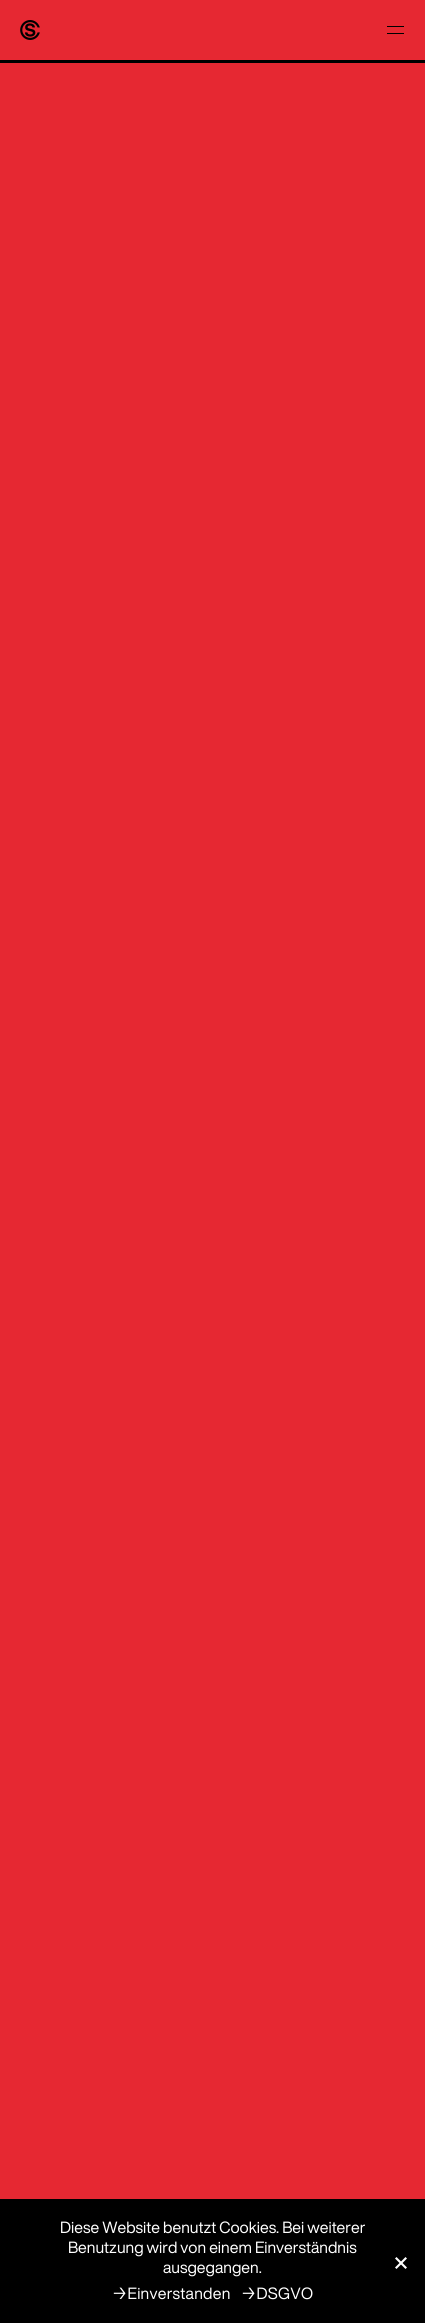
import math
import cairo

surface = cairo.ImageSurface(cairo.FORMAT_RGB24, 425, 2323)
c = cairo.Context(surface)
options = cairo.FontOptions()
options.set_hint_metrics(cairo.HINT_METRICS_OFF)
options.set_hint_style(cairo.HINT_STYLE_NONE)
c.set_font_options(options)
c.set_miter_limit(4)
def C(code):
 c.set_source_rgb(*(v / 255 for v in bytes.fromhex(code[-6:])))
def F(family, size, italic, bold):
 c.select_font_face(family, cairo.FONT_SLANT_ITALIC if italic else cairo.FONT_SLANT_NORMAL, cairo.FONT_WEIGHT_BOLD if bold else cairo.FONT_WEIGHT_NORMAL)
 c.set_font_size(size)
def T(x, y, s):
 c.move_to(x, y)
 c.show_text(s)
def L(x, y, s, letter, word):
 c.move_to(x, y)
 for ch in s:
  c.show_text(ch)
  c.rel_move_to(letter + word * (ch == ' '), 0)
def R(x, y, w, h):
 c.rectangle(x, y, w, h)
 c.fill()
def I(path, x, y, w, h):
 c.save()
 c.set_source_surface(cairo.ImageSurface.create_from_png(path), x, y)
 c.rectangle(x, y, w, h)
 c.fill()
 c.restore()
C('e62832')
c.paint()
I('1.png',20,20,20,20)
C('000000')
R(387,26,17,1)
R(387,33,17,1)
R(0,60,425,3)
R(0,2199,425,124)
F('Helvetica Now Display',16,0,0)
C('ffffff')
T(60,2233,'Diese Website benutzt Cookies. Bei weiterer')
T(68,2253,'Benutzung wird von einem Einverständnis')
T(163,2273,'ausgegangen.')
c.new_path()
c.move_to(405.5,2257)
c.line_to(407,2258.5)
c.line_to(396.5,2269)
c.line_to(395,2267.5)
c.close_path()
c.fill()
c.new_path()
c.move_to(395,2258.5)
c.line_to(396.5,2257)
c.line_to(407,2267.5)
c.line_to(405.5,2269)
c.close_path()
c.fill()
L(112,2299,'→Einverstanden',.25,0)
L(241,2299,'→DSGVO',.25,0)
surface.write_to_png('o.png')
